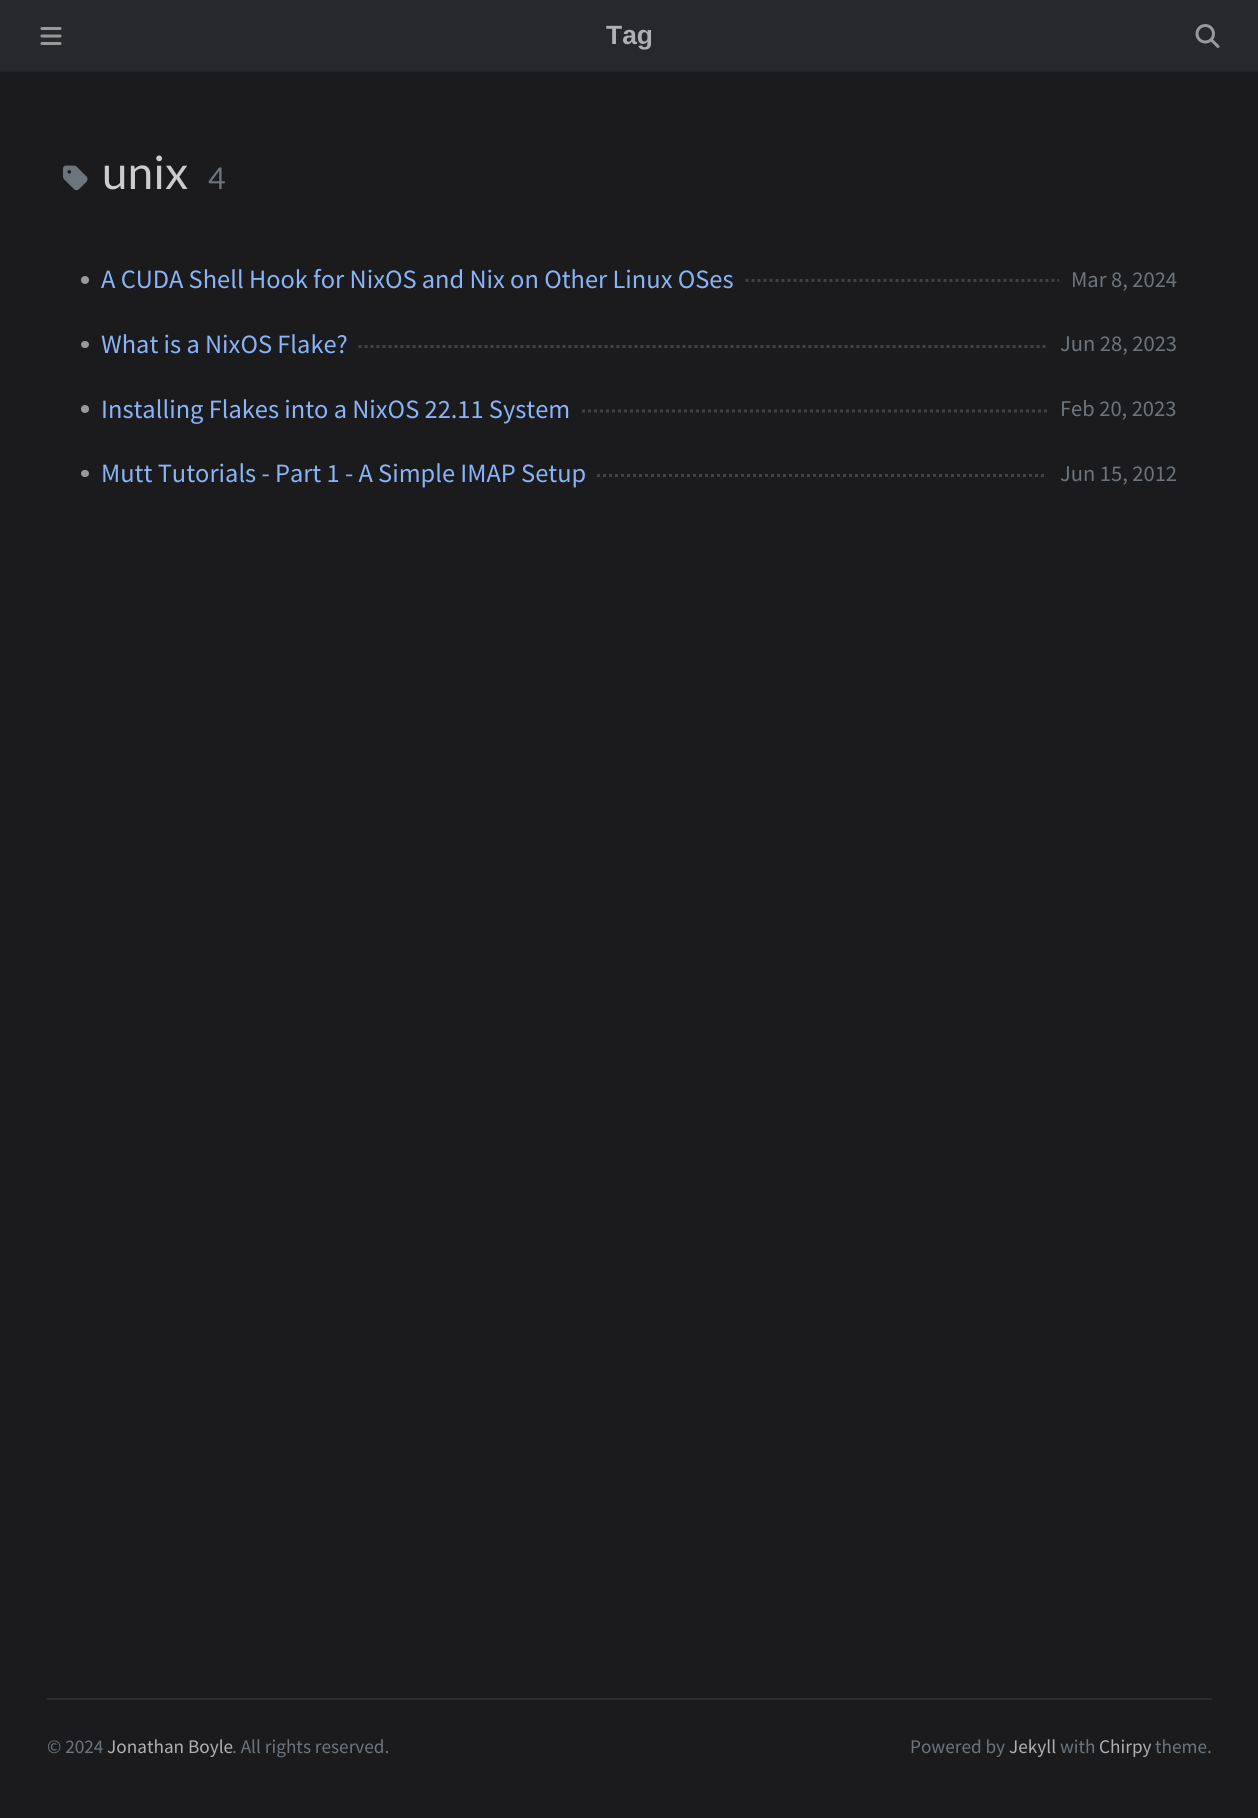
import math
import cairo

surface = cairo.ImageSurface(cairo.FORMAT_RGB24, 1258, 1818)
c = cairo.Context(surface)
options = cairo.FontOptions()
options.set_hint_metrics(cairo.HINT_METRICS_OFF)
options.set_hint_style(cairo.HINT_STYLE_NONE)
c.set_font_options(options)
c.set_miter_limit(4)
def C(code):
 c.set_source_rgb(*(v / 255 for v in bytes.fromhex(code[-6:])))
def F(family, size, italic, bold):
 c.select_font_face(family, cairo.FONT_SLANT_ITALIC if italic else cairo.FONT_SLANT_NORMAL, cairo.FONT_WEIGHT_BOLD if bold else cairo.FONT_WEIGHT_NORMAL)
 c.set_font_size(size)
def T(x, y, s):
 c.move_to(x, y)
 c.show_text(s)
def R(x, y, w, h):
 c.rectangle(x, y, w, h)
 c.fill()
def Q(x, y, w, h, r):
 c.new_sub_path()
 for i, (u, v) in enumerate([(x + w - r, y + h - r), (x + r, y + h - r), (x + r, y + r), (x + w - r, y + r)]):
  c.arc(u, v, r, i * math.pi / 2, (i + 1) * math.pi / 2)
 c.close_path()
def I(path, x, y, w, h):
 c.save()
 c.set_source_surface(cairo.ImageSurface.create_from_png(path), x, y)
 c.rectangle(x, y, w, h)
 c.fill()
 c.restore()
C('1b1b1e')
c.paint()
C('27282b')
R(0,0,1258,71)
C('242528')
R(0,71,1258,1)
I('1.png',40,27,22,18)
F('Liberation Sans',26.4,0,1)
C('afb0b1')
T(606,44,'Tag')
I('2.png',1195,24,25,24)
I('3.png',63,165,25,26)
F('Lato',46,0,0)
C('cccccc')
T(102,189,'unix')
F('Lato',30,0,0)
C('6c757d')
T(208,189,'4')
C('999999')
c.new_path()
c.arc(85,280,4,0,2 * math.pi)
c.fill()
F('Source Sans Pro',26.4,0,0)
C('8ab4f8')
T(101,288,'A CUDA Shell Hook for NixOS and Nix on Other Linux OSes')
c.new_path()
c.move_to(745.5,280.5)
c.line_to(1059,280.5)
C('3f4144')
c.set_line_width(3)
c.set_dash([3,3])
c.stroke()
F('Source Sans Pro',22.5,0,0)
C('6c757d')
T(1071,287,'Mar 8, 2024')
C('999999')
Q(81,341,8,7,3.5)
c.fill()
F('Source Sans Pro',26.4,0,0)
C('8ab4f8')
T(101,353,'What is a NixOS Flake?')
c.new_path()
c.move_to(358.5,346.5)
c.line_to(1047,346.5)
C('3f4144')
c.stroke()
F('Source Sans Pro',22.5,0,0)
C('6c757d')
T(1060,351,'Jun 28, 2023')
C('999999')
c.new_path()
c.arc(85,409,4,0,2 * math.pi)
c.fill()
F('Source Sans Pro',26.4,0,0)
C('8ab4f8')
T(101,418,'Installing Flakes into a NixOS 22.11 System')
c.new_path()
c.move_to(582,411)
c.line_to(1048.5,411)
C('3f4144')
c.stroke()
F('Source Sans Pro',22.5,0,0)
C('6c757d')
T(1060,416,'Feb 20, 2023')
C('999999')
Q(81,470,8,7,3.5)
c.fill()
F('Source Sans Pro',26.4,0,0)
C('8ab4f8')
T(101,482,'Mutt Tutorials - Part 1 - A Simple IMAP Setup')
c.new_path()
c.move_to(597,475.5)
c.line_to(1047,475.5)
C('3f4144')
c.stroke()
F('Source Sans Pro',22.5,0,0)
C('6c757d')
T(1060,481,'Jun 15, 2012')
C('2c2d2d')
R(47,1698,1165,2)
F('Source Sans Pro',19.25,0,0)
C('6c757d')
T(47,1753,'© 2024')
C('afb0b1')
T(107,1753,'Jonathan Boyle')
C('6c757d')
T(232,1753,'. All rights reserved.')
T(910,1753,'Powered by')
C('afb0b1')
T(1009,1753,'Jekyll')
C('6c757d')
T(1060,1753,'with')
C('afb0b1')
T(1099,1753,'Chirpy')
C('6c757d')
T(1155,1753,'theme.')
surface.write_to_png('o.png')
